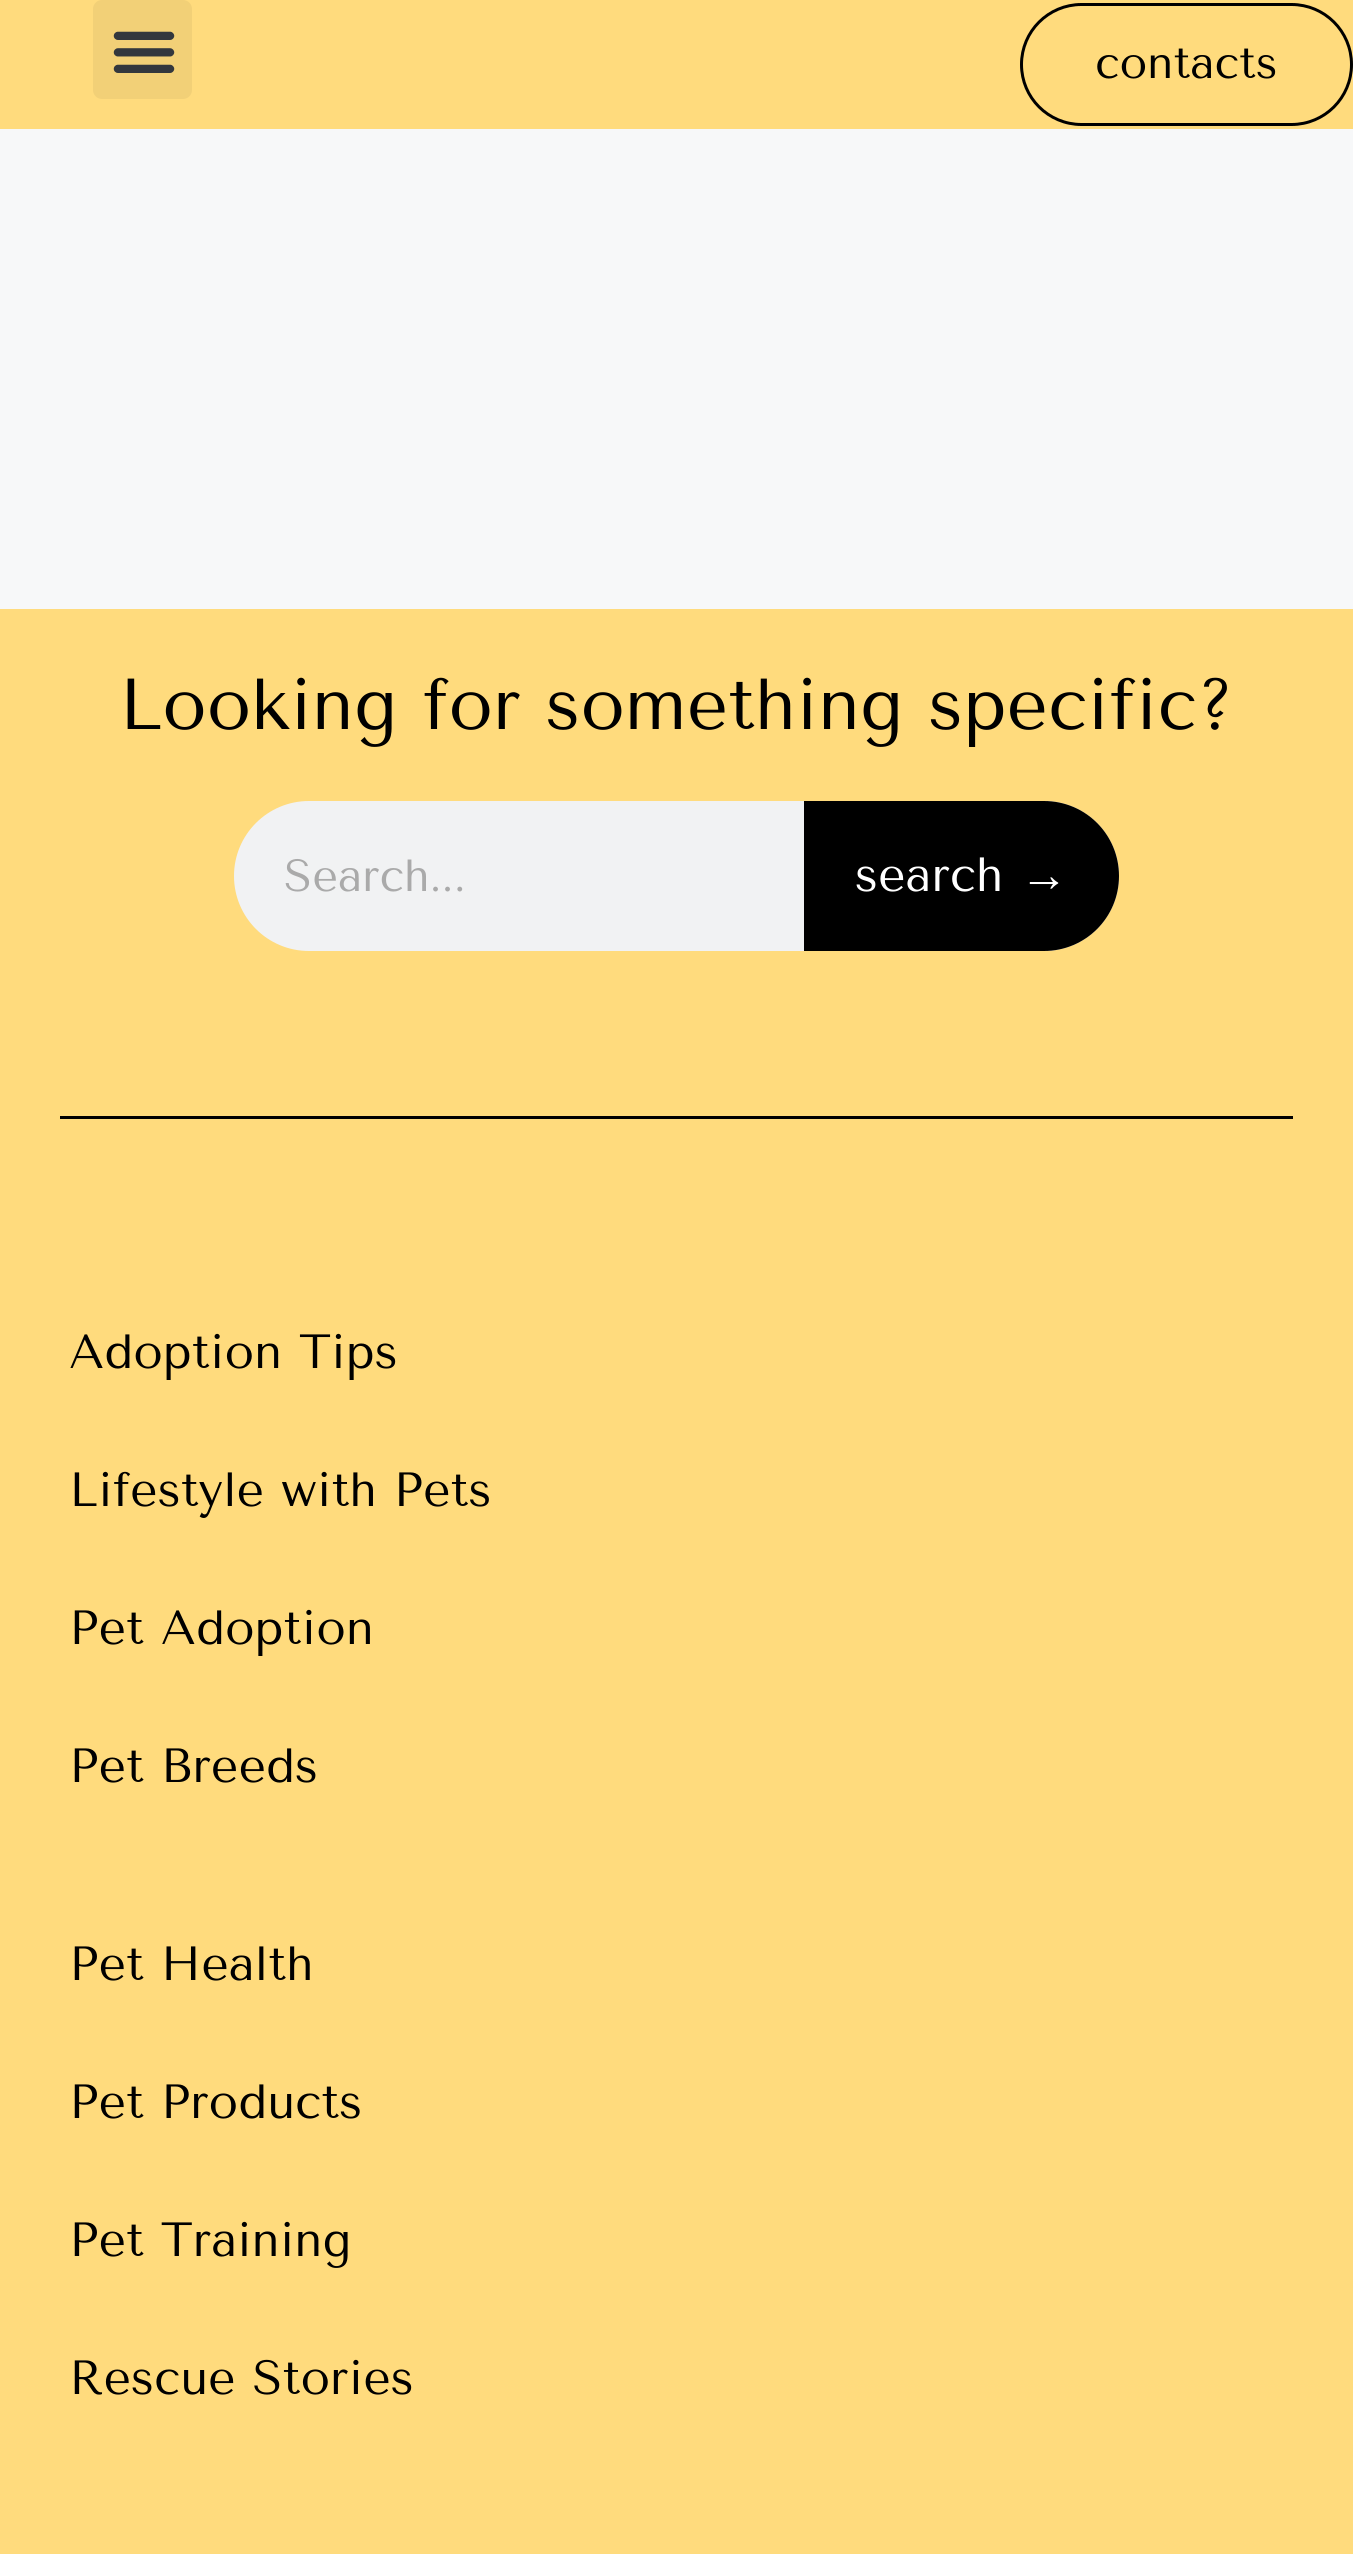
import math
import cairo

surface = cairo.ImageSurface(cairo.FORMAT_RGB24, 1353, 2554)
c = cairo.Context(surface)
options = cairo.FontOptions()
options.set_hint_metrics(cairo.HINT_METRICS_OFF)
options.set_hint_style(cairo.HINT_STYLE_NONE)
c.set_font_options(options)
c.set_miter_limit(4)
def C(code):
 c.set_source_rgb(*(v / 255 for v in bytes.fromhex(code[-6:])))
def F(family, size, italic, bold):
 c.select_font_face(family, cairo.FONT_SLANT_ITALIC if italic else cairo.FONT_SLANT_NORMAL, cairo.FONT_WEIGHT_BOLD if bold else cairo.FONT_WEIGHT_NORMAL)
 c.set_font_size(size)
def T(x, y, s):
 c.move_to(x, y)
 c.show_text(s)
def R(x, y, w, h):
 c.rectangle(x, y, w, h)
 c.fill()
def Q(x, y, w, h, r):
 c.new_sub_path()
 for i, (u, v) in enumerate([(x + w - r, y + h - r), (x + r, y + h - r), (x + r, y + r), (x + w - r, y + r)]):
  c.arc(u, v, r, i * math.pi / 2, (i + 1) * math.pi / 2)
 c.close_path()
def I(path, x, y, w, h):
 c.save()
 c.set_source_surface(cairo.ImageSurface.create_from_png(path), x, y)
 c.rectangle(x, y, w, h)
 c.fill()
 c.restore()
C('f7f8f9')
c.paint()
C('ffdb7d')
R(0,0,1353,129)
C('f2d077')
Q(93,0,99,99,9)
c.fill()
I('1.png',113,31,62,42)
Q(1021.5,4.5,330,120,60)
C('000000')
c.set_line_width(3)
c.stroke()
F('Tenor Sans',45,0,0)
T(1095,78,'contacts')
C('ffdb7d')
R(0,609,1353,1945)
F('Tenor Sans',72,0,0)
C('000000')
T(119,729,'Looking for something specific?')
C('f1f2f3')
Q(234,801,885,150,75)
c.fill()
F('Tenor Sans',45,0,0)
C('aaaaaa')
T(284,891,'Search...')
C('000000')
c.new_path()
c.move_to(804,801)
c.line_to(1044,801)
c.curve_to(1085.5,801,1119,834.5,1119,876)
c.curve_to(1119,917.5,1085.5,951,1044,951)
c.line_to(804,951)
c.close_path()
c.fill()
F('Tenor Sans',48,0,0)
C('ffffff')
T(855,891,'search')
F('Liberation Sans',48,0,0)
T(1020,891,'→')
C('000000')
R(60,1116,1233,3)
F('Tenor Sans',48,0,0)
T(69,1368,'Adoption Tips')
T(69,1506,'Lifestyle with Pets')
T(69,1644,'Pet Adoption')
T(69,1782,'Pet Breeds')
T(69,1980,'Pet Health')
T(69,2118,'Pet Products')
T(69,2256,'Pet Training')
T(69,2394,'Rescue Stories')
surface.write_to_png('o.png')
